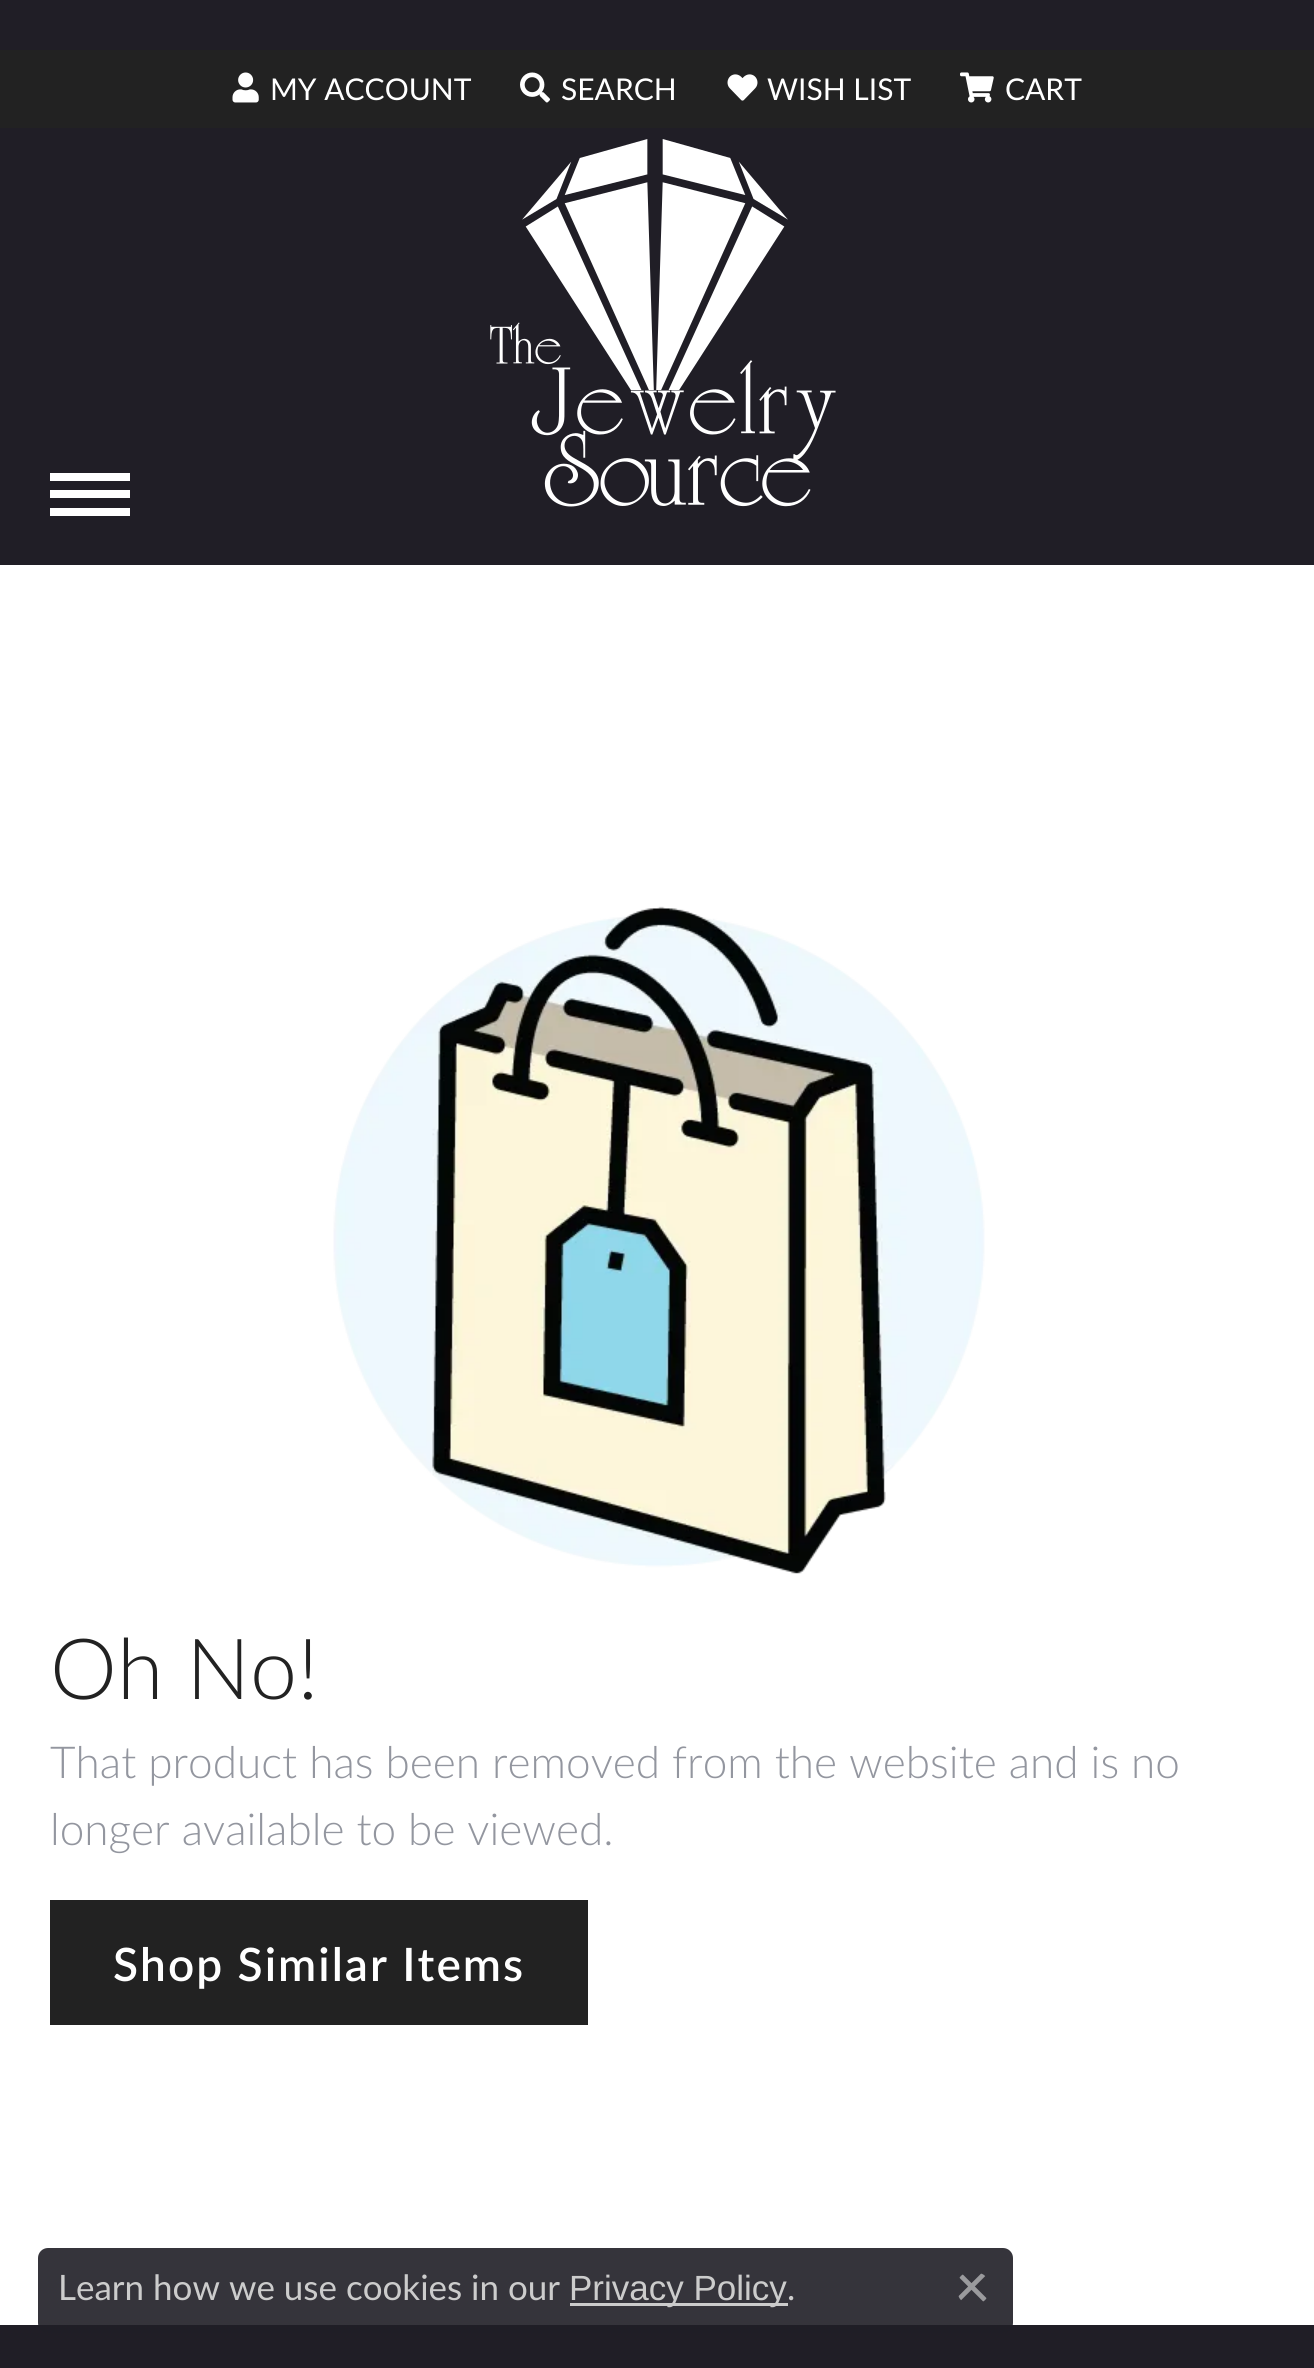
import math
import cairo

surface = cairo.ImageSurface(cairo.FORMAT_RGB24, 1314, 2368)
c = cairo.Context(surface)
options = cairo.FontOptions()
options.set_hint_metrics(cairo.HINT_METRICS_OFF)
options.set_hint_style(cairo.HINT_STYLE_NONE)
c.set_font_options(options)
c.set_miter_limit(4)
def C(code):
 c.set_source_rgb(*(v / 255 for v in bytes.fromhex(code[-6:])))
def F(family, size, italic, bold):
 c.select_font_face(family, cairo.FONT_SLANT_ITALIC if italic else cairo.FONT_SLANT_NORMAL, cairo.FONT_WEIGHT_BOLD if bold else cairo.FONT_WEIGHT_NORMAL)
 c.set_font_size(size)
def T(x, y, s):
 c.move_to(x, y)
 c.show_text(s)
def L(x, y, s, letter, word):
 c.move_to(x, y)
 for ch in s:
  c.show_text(ch)
  c.rel_move_to(letter + word * (ch == ' '), 0)
def R(x, y, w, h):
 c.rectangle(x, y, w, h)
 c.fill()
def Q(x, y, w, h, r):
 c.new_sub_path()
 for i, (u, v) in enumerate([(x + w - r, y + h - r), (x + r, y + h - r), (x + r, y + r), (x + w - r, y + r)]):
  c.arc(u, v, r, i * math.pi / 2, (i + 1) * math.pi / 2)
 c.close_path()
def I(path, x, y, w, h):
 c.save()
 c.set_source_surface(cairo.ImageSurface.create_from_png(path), x, y)
 c.rectangle(x, y, w, h)
 c.fill()
 c.restore()
C('201e26')
c.paint()
C('222222')
R(0,50,1314,78)
I('1.png',232,72,27,31)
F('Lato',30,0,0)
C('ffffff')
T(270,100,'MY ACCOUNT')
I('2.png',520,72,30,31)
T(561,100,'SEARCH')
I('3.png',727,74,31,27)
T(767,100,'WISH LIST')
I('4.png',960,72,34,31)
T(1005,100,'CART')
R(50,473,80,8)
R(50,490,80,8)
R(50,508,80,8)
I('5.png',490,139,346,368)
R(0,565,1314,1760)
I('6.png',333,906,652,668)
F('Lato Light',84.5,0,0)
C('222222')
T(50,1699,'Oh No!')
F('Lato Light',44.1,0,0)
C('93969f')
T(50,1778,'That product has been removed from the website and is no')
T(50,1845,'longer available to be viewed.')
C('222222')
R(50,1900,538,125)
F('Lato SemiBold',46,0,0)
C('ffffff')
L(113,1981,'Shop Similar Items',2,0)
c.set_source_rgba(0.125,0.118,0.149,0.9)
Q(38,2248,975,85,10)
c.fill()
F('Lato',35,0,0)
C('cccccc')
T(58,2300,'Learn how we use cookies in our')
R(570,2303,218,3)
F('Liberation Sans',35,0,0)
T(569,2300,'Privacy Policy')
F('Lato',35,0,0)
T(787,2300,'.')
I('7.png',958,2273,29,29)
surface.write_to_png('o.png')
